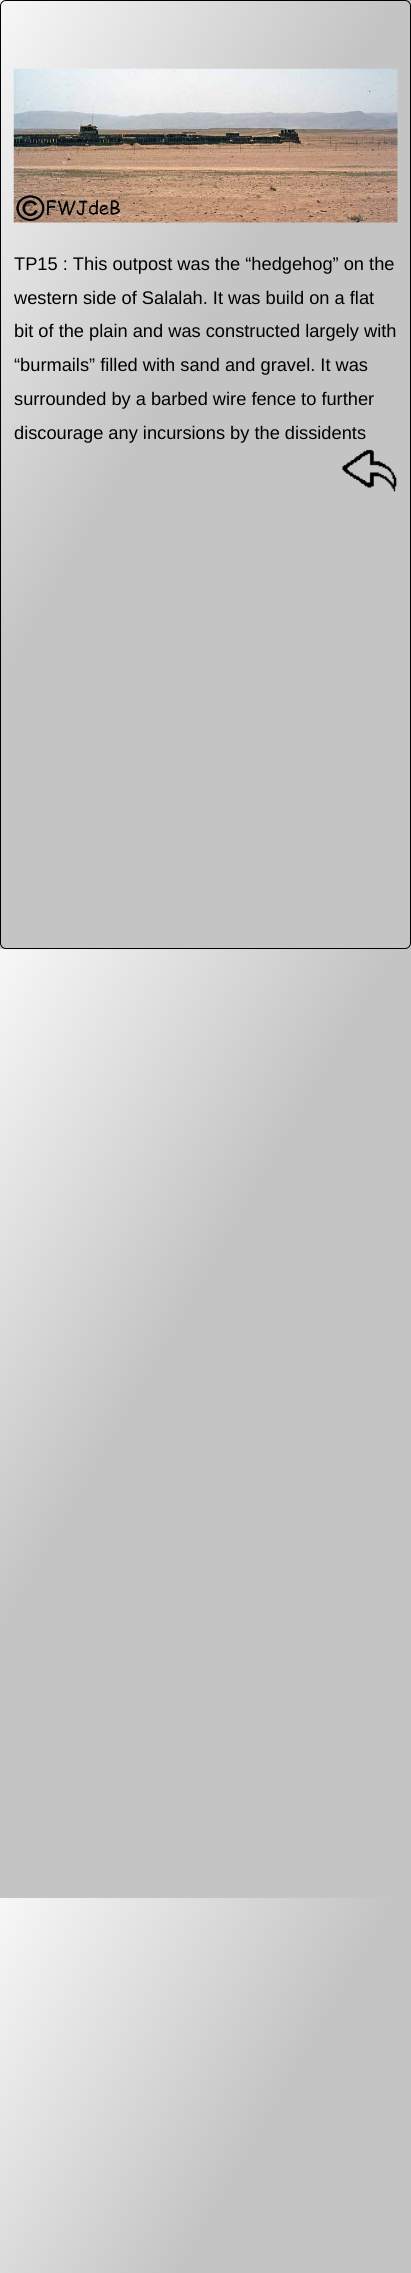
import math
import cairo

surface = cairo.ImageSurface(cairo.FORMAT_RGB24, 411, 2273)
c = cairo.Context(surface)
options = cairo.FontOptions()
options.set_hint_metrics(cairo.HINT_METRICS_OFF)
options.set_hint_style(cairo.HINT_STYLE_NONE)
c.set_font_options(options)
c.set_miter_limit(4)
def C(code):
 c.set_source_rgb(*(v / 255 for v in bytes.fromhex(code[-6:])))
def F(family, size, italic, bold):
 c.select_font_face(family, cairo.FONT_SLANT_ITALIC if italic else cairo.FONT_SLANT_NORMAL, cairo.FONT_WEIGHT_BOLD if bold else cairo.FONT_WEIGHT_NORMAL)
 c.set_font_size(size)
def T(x, y, s):
 c.move_to(x, y)
 c.show_text(s)
def R(x, y, w, h):
 c.rectangle(x, y, w, h)
 c.fill()
def Q(x, y, w, h, r):
 c.new_sub_path()
 for i, (u, v) in enumerate([(x + w - r, y + h - r), (x + r, y + h - r), (x + r, y + r), (x + w - r, y + r)]):
  c.arc(u, v, r, i * math.pi / 2, (i + 1) * math.pi / 2)
 c.close_path()
def I(path, x, y, w, h):
 c.save()
 c.set_source_surface(cairo.ImageSurface.create_from_png(path), x, y)
 c.rectangle(x, y, w, h)
 c.fill()
 c.restore()
C('ffffff')
c.paint()
gradient = cairo.LinearGradient(-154,267,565,682)
gradient.add_color_stop_rgba(0,0.969,0.969,0.969,1)
gradient.add_color_stop_rgba(.41,0.769,0.769,0.769,1)
c.set_source(gradient)
R(0,0,411,949)
gradient = cairo.LinearGradient(-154,1215,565,1631)
gradient.add_color_stop_rgba(0,0.969,0.969,0.969,1)
gradient.add_color_stop_rgba(.41,0.769,0.769,0.769,1)
c.set_source(gradient)
R(0,949,411,949)
gradient = cairo.LinearGradient(-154,2164,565,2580)
gradient.add_color_stop_rgba(0,0.969,0.969,0.969,1)
gradient.add_color_stop_rgba(.41,0.769,0.769,0.769,1)
c.set_source(gradient)
R(0,1898,411,375)
Q(.5,.5,410,948,5.5)
C('000000')
c.set_line_width(1)
c.stroke()
I('1.png',13,68,385,155)
F('Liberation Sans',18.25,0,0)
T(14,270,'TP15 : This outpost was the “hedgehog” on the')
T(14,304,'western side of Salalah. It was build on a flat')
T(14,337,'bit of the plain and was constructed largely with')
T(14,371,'“burmails” filled with sand and gravel. It was')
T(14,405,'surrounded by a barbed wire fence to further')
T(14,439,'discourage any incursions by the dissidents')
I('2.png',342,449,55,43)
surface.write_to_png('o.png')
